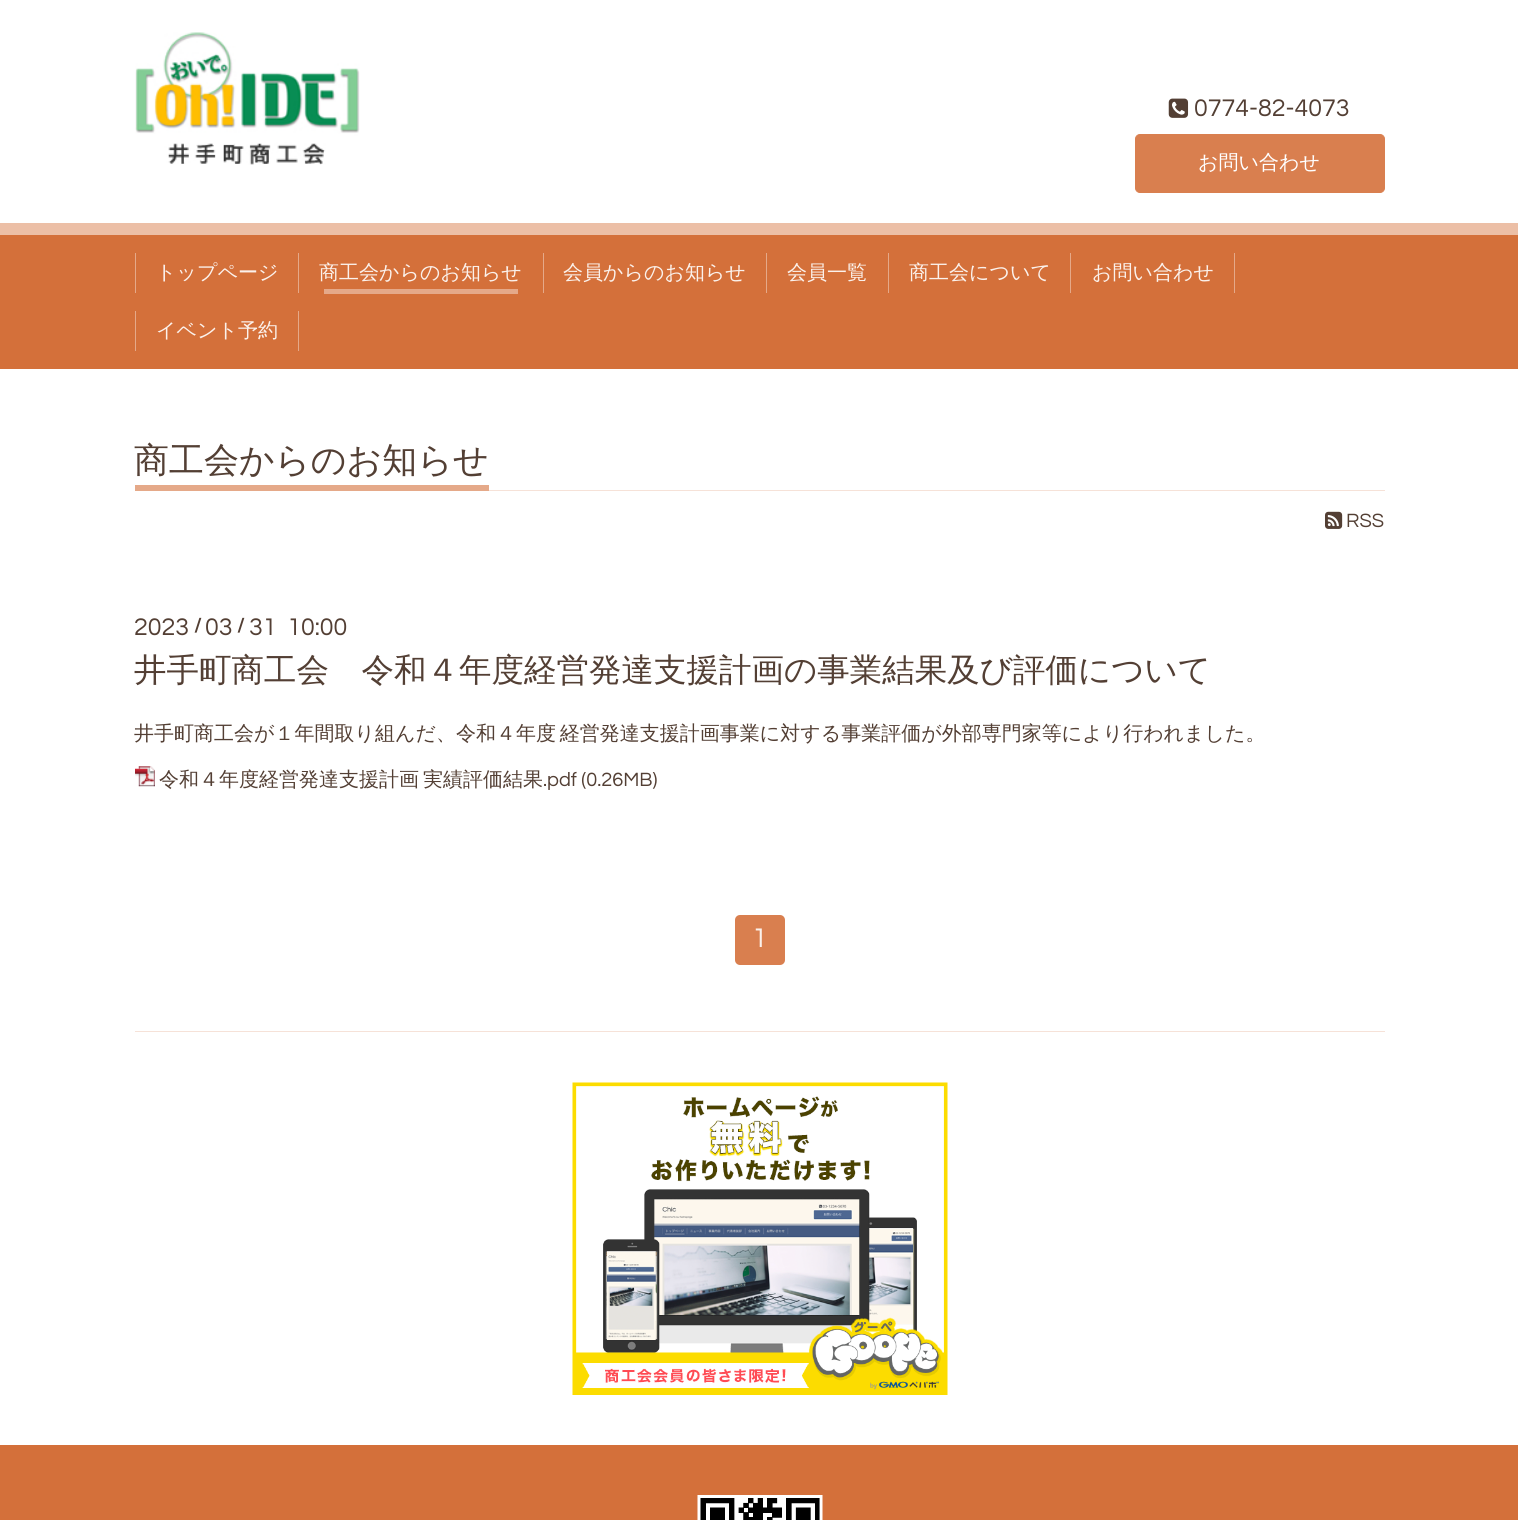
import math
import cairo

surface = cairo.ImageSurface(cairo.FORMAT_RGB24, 1518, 1520)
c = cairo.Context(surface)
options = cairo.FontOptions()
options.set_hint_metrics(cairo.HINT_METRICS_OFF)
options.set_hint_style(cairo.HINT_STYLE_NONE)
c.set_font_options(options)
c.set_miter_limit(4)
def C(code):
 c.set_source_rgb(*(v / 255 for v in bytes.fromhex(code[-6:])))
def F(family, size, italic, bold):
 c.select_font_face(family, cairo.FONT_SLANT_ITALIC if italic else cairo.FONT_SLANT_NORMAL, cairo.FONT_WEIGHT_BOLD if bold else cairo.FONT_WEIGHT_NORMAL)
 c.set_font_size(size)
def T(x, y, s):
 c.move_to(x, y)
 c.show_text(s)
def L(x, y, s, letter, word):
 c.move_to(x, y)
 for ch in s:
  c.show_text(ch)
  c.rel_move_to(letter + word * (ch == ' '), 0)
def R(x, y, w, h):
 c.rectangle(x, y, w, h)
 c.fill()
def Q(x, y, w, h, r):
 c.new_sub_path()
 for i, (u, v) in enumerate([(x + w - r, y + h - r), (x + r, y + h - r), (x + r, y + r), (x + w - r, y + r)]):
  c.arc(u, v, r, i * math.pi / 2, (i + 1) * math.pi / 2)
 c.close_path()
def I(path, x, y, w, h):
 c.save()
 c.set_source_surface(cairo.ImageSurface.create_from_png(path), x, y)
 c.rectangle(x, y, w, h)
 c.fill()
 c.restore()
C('ffffff')
c.paint()
I('1.png',135,32,225,133)
I('2.png',1168,98,21,20)
F('Questrial',25,0,0)
C('533f34')
T(1194,116,'0774-82-4073')
C('d97f4f')
Q(1135.5,134.5,249,58,4.5)
c.fill_preserve()
c.set_line_width(1)
c.stroke()
F('WenQuanYi Zen Hei Medium',20,0,0)
C('ffffff')
T(1198,169,'お問い合わせ')
C('ecbfa6')
R(0,223,1518,12)
C('d4703a')
R(0,235,1518,134)
C('e5a989')
R(298,253,1,40)
R(135,253,1,40)
C('fbf1eb')
T(156,279,'トップページ')
C('e5a989')
R(543,253,1,40)
C('fbf1eb')
T(319,279,'商工会からのお知らせ')
C('e5a989')
R(324,289,194,5)
R(766,253,1,40)
C('fbf1eb')
T(563,279,'会員からのお知らせ')
C('e5a989')
R(888,253,1,40)
C('fbf1eb')
T(787,279,'会員一覧')
C('e5a989')
R(1070,253,1,40)
C('fbf1eb')
T(909,279,'商工会について')
C('e5a989')
R(1234,253,1,40)
C('fbf1eb')
T(1092,279,'お問い合わせ')
C('e5a989')
R(298,311,1,40)
R(135,311,1,40)
C('fbf1eb')
T(156,337,'イベント予約')
C('f6e2d8')
R(489,490,896,1)
C('e5a989')
R(135,485,354,6)
F('WenQuanYi Zen Hei Medium',35,0,0)
C('533f34')
T(134,472,'商工会からのお知らせ')
I('3.png',1325,511,18,18)
F('Questrial',20,0,0)
T(1346,527,'RSS')
F('Questrial',25,0,0)
T(134,635,'2023')
F('Questrial',20,0,1)
T(194,632,'/')
F('Questrial',25,0,0)
T(205,635,'03')
F('Questrial',20,0,1)
T(237,632,'/')
F('Questrial',25,0,0)
T(249,635,'31  10:00')
F('WenQuanYi Zen Hei Medium',32.5,0,0)
T(134,681,'井手町商工会　令和４年度経営発達支援計画の事業結果及び評価について')
F('WenQuanYi Zen Hei Medium',20,0,0)
L(134,740,'井手町商工会が１年間取り組んだ、令和４年度 経営発達支援計画事業に対する事業評価が外部専門家等により行われました。',0,-2)
I('4.png',135,766,20,21)
L(159,786,'令和４年度経営発達支援計画 実績評価結果',0,-2)
F('Questrial',20,0,0)
T(543,786,'.pdf (0.26MB)')
C('d97f4f')
Q(735,915,50,50,5)
c.fill()
F('Questrial',28,0,0)
C('fbf1eb')
T(752,947,'1')
C('f6e2d8')
R(135,1031,1250,1)
I('5.png',572,1082,376,313)
C('d4703a')
R(0,1445,1518,75)
I('6.png',697,1495,126,25)
surface.write_to_png('o.png')
